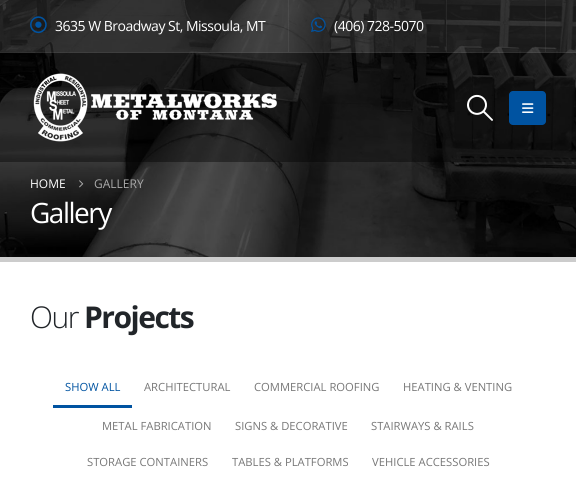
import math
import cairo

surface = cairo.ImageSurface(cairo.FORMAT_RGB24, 576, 496)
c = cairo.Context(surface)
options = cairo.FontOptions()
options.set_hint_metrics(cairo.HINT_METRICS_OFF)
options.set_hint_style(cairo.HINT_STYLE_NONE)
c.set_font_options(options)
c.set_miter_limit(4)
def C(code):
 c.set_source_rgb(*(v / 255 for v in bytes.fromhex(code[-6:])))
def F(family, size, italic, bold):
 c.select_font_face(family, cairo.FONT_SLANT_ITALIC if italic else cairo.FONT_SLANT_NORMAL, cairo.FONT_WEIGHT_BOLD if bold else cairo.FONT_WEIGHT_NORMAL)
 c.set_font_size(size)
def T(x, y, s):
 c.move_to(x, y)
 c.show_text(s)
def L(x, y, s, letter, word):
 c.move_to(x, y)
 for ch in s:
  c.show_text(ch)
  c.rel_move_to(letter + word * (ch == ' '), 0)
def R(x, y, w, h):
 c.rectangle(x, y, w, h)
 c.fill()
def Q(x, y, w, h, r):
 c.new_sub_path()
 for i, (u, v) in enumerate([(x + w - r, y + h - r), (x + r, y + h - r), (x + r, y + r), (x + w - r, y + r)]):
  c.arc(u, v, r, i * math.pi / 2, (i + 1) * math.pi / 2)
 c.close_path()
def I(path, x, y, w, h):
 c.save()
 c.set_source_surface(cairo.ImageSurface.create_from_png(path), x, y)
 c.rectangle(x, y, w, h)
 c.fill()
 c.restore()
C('ffffff')
c.paint()
I('6.png',0,0,576,257)
c.set_source_rgba(0.251,0.251,0.251,0.4)
R(0,0,576,53)
c.set_source_rgba(1,1,1,0.06)
R(0,52,576,1)
R(288,0,1,52)
I('1.png',30,16,17,18)
F('Open Sans',14,0,0)
C('ffffff')
L(55,31,'3635 W Broadway St, Missoula, MT',-.5,0)
c.set_source_rgba(1,1,1,0.06)
R(446,0,1,52)
I('2.png',311,17,15,15)
C('ffffff')
L(334,31,'(406) 728-5070',-.5,0)
c.set_source_rgba(1,1,1,0.06)
R(545,0,1,52)
c.set_source_rgba(0,0,0,0.4)
R(0,53,576,109)
I('3.png',33,73,244,69)
I('4.png',467,94,26,27)
C('0053a1')
Q(509,91,37,34,4)
c.fill()
I('5.png',522,103,12,10)
C('cccccc')
R(0,257,576,5)
F('Open Sans',12,0,0)
C('ffffff')
T(30,188,'HOME')
I('7.png',79,180,5,8)
C('aaaaaa')
T(94,188,'GALLERY')
F('Open Sans',28,0,0)
C('ffffff')
L(30,223,'Gallery',-1.5,0)
F('Open Sans Light',30,0,0)
C('212529')
L(30,328,'Our',-1.5,0)
F('Open Sans',30,0,1)
L(84,328,'Projects',-1.5,0)
C('0053a1')
R(53,405,79,3)
F('Open Sans',11.25,0,0)
T(65,391,'SHOW ALL')
C('777777')
T(144,391,'ARCHITECTURAL')
T(254,391,'COMMERCIAL ROOFING')
T(403,391,'HEATING & VENTING')
T(102,430,'METAL FABRICATION')
T(235,430,'SIGNS & DECORATIVE')
T(371,430,'STAIRWAYS & RAILS')
T(87,466,'STORAGE CONTAINERS')
T(232,466,'TABLES & PLATFORMS')
T(372,466,'VEHICLE ACCESSORIES')
surface.write_to_png('o.png')
